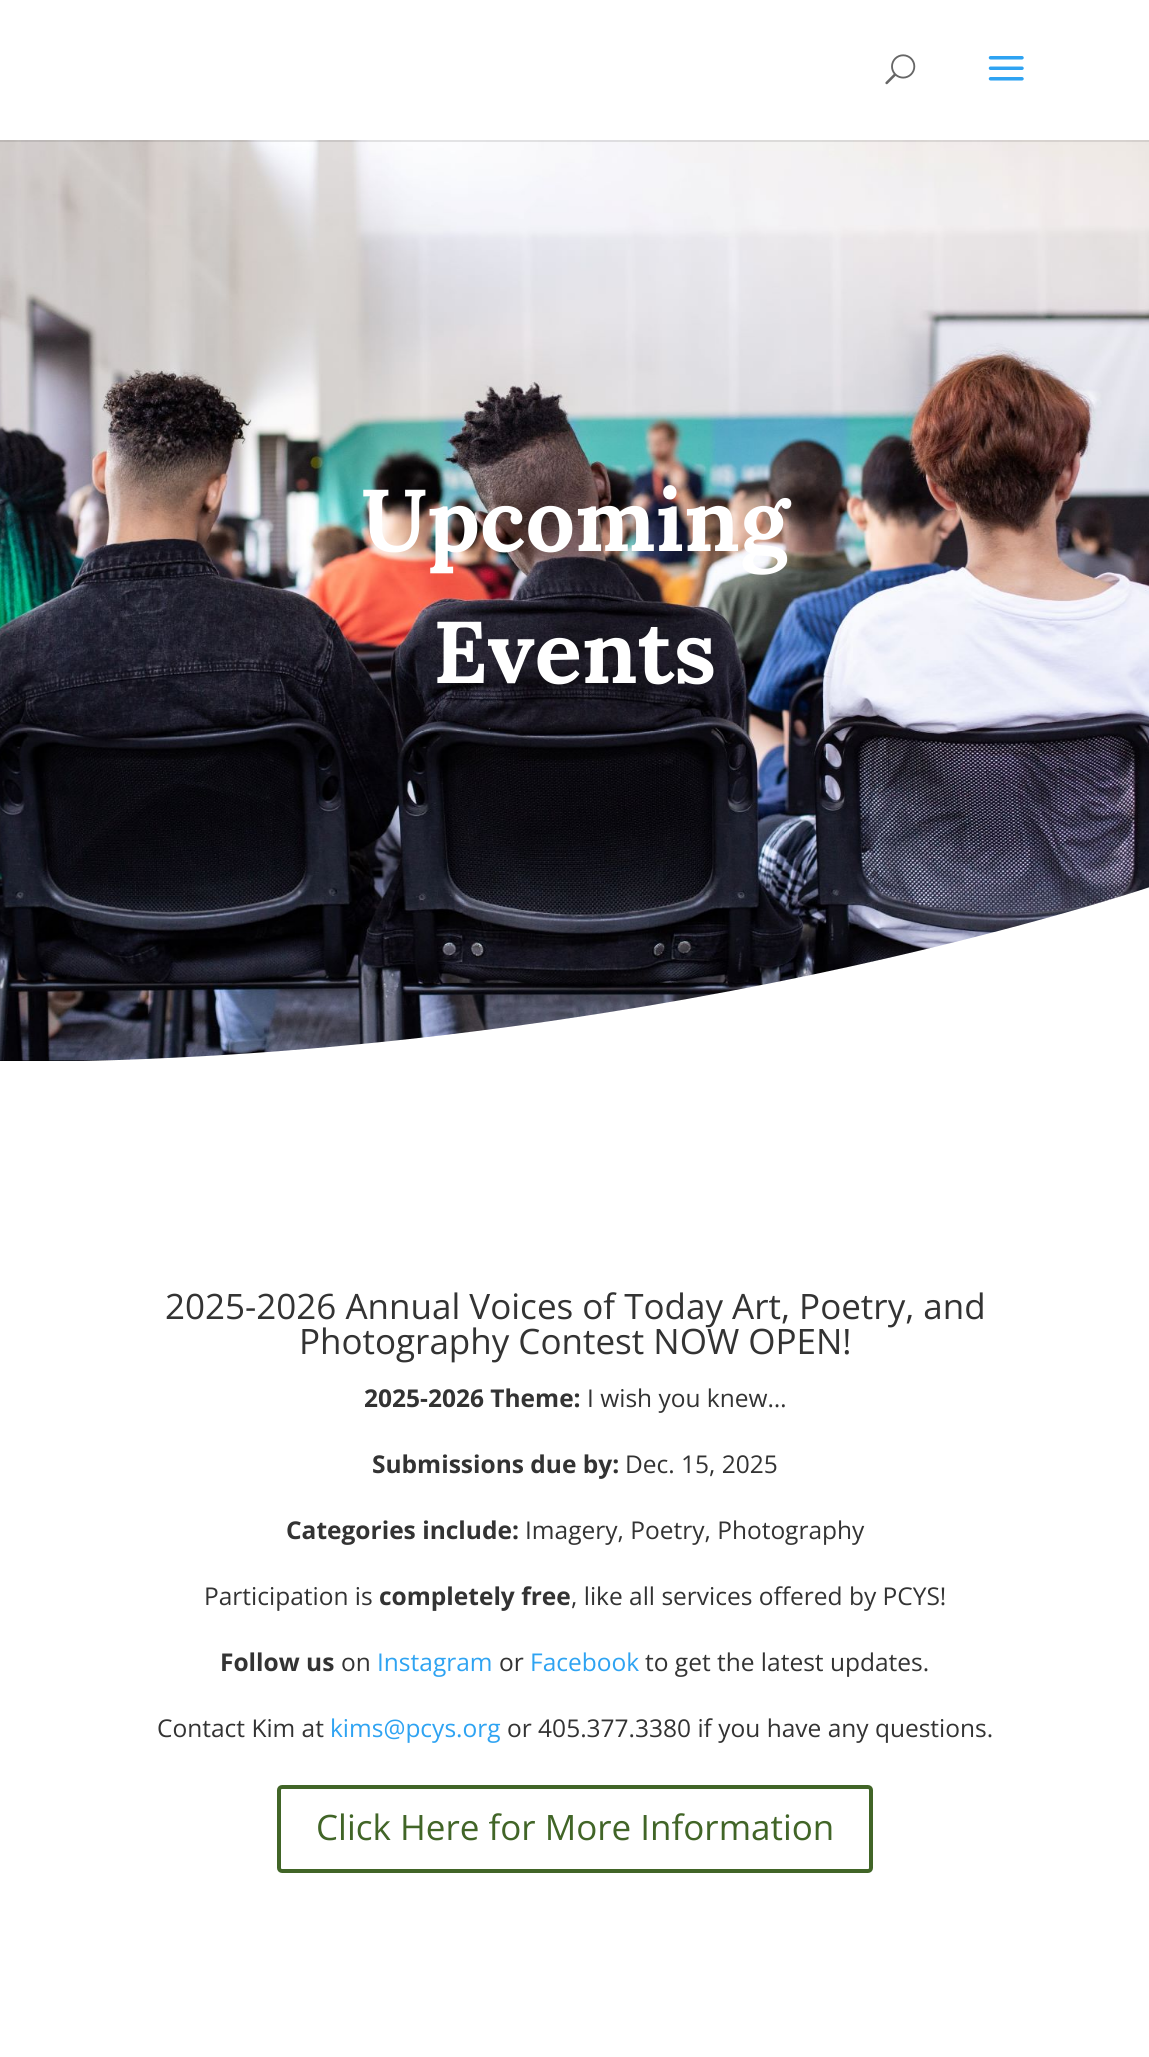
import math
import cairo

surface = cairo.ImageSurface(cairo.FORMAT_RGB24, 1149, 2057)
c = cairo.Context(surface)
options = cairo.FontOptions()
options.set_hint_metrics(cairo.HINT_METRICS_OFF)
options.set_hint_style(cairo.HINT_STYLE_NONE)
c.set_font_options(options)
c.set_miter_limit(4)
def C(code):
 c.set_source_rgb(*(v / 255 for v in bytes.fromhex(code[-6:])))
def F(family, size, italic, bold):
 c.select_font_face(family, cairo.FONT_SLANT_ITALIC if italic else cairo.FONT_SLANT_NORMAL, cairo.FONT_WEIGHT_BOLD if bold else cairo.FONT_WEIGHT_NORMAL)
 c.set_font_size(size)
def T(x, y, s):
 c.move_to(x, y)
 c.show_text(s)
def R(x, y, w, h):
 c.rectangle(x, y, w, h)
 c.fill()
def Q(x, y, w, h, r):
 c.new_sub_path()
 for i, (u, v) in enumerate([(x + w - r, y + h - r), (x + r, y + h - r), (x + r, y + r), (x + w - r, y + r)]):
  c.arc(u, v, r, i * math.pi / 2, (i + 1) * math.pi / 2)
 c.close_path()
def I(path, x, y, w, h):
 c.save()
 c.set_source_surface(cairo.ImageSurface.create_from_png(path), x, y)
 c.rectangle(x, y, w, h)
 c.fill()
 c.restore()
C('ffffff')
c.paint()
C('000000')
R(0,1060,118,1)
I('3.png',0,140,1149,921)
c.set_source_rgba(0,0,0,0.1)
c.new_path()
c.move_to(0,140)
c.line_to(0,142)
c.line_to(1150,142)
c.line_to(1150,2)
c.line_to(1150,140)
c.close_path()
c.fill()
I('1.png',885,54,31,31)
I('2.png',988,56,36,25)
F('Lora',87.5,0,1)
C('ffffff')
T(361,551,'Upcoming')
T(433,683,'Events')
c.new_path()
c.move_to(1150,1062)
c.line_to(0,1062)
c.curve_to(635,1062,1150,887,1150,887)
c.close_path()
c.fill()
F('Open Sans',35,0,0)
C('333333')
T(165,1319,'2025-2026 Annual Voices of Today Art, Poetry, and')
T(299,1354,'Photography Contest NOW OPEN!')
F('Open Sans',24.5,0,1)
T(364,1407,'2025-2026 Theme:')
F('Open Sans',24.5,0,0)
T(587,1407,'I wish you knew…')
F('Open Sans',24.5,0,1)
T(372,1473,'Submissions due by:')
F('Open Sans',24.5,0,0)
T(625,1473,'Dec. 15, 2025')
F('Open Sans',24.5,0,1)
T(286,1539,'Categories include:')
F('Open Sans',24.5,0,0)
T(525,1539,'Imagery, Poetry, Photography')
T(204,1605,'Participation is')
F('Open Sans',24.5,0,1)
T(379,1605,'completely free')
F('Open Sans',24.5,0,0)
T(571,1605,', like all services offered by PCYS!')
F('Open Sans',24.5,0,1)
T(220,1671,'Follow us')
F('Open Sans',24.5,0,0)
T(341,1671,'on')
C('2ea3f2')
T(377,1671,'Instagram')
C('333333')
T(499,1671,'or')
C('2ea3f2')
T(530,1671,'Facebook')
C('333333')
T(645,1671,'to get the latest updates.')
T(157,1737,'Contact Kim at')
C('2ea3f2')
T(330,1737,'kims@pcys.org')
C('333333')
T(507,1737,'or 405.377.3380 if you have any questions.')
Q(279,1787,592,84,3)
C('416527')
c.set_line_width(4)
c.stroke()
F('Open Sans',35,0,0)
T(316,1840,'Click Here for More Information')
surface.write_to_png('o.png')
